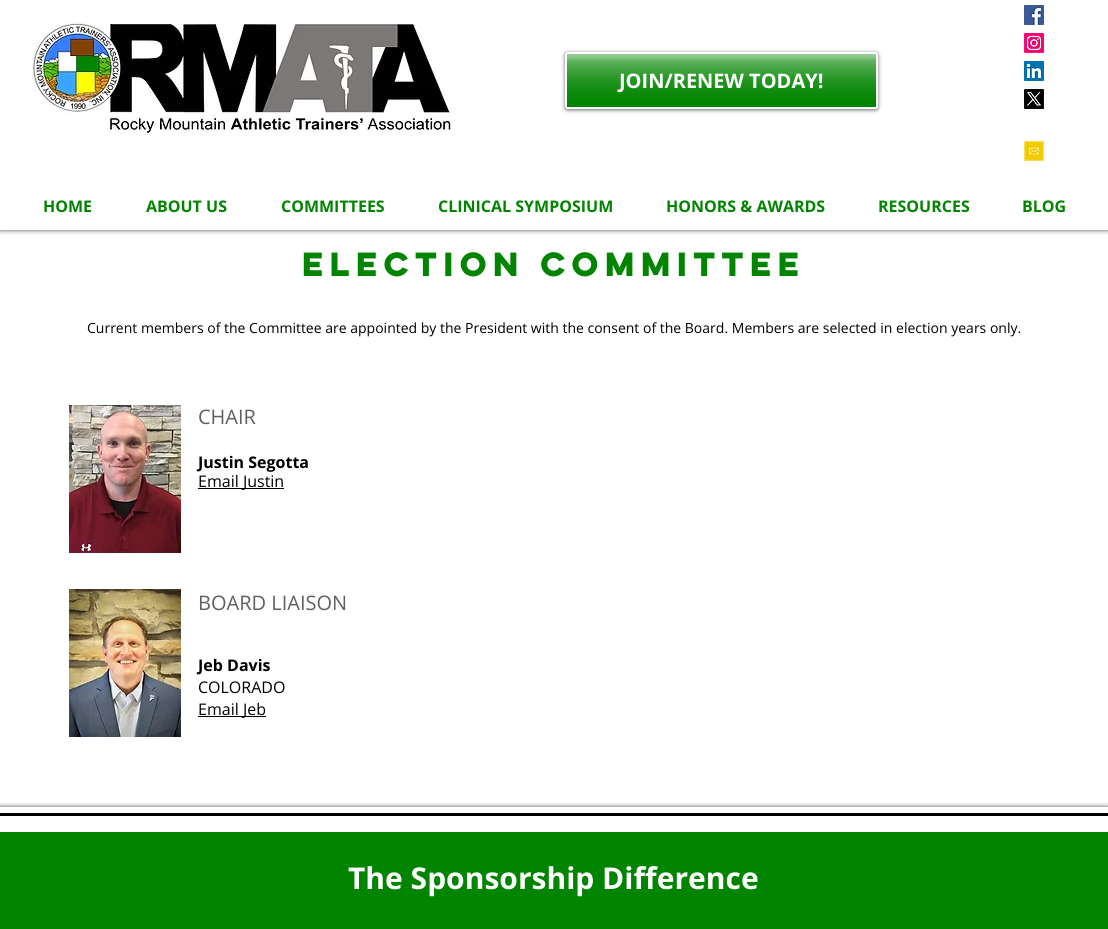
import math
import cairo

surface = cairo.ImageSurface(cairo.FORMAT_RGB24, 1108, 929)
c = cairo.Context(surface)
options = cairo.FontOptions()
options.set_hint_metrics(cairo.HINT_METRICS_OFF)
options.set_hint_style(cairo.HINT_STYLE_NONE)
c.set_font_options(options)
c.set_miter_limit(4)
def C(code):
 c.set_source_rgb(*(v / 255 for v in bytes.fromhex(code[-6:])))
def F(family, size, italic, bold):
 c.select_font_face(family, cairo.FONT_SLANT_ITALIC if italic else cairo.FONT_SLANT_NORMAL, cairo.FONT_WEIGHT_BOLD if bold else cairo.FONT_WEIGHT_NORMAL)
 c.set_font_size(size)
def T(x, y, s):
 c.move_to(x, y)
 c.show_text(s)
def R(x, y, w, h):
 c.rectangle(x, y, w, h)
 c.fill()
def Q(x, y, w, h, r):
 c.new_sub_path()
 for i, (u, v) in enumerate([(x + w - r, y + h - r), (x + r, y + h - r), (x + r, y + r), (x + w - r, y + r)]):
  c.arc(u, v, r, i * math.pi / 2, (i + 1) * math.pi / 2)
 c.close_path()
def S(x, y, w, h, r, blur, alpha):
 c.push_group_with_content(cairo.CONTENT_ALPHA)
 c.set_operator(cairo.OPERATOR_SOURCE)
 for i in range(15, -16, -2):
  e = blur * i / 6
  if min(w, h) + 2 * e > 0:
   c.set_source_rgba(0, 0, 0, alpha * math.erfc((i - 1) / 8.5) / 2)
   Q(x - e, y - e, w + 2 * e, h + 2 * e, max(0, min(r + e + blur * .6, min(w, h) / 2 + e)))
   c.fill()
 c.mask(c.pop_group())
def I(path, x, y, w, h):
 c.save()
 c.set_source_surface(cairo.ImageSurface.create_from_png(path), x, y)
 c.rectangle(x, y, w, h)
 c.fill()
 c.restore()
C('ffffff')
c.paint()
c.save()
c.rectangle(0,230,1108,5)
c.clip()
C('000000')
S(0,0,1108,230,0,2.5,.7)
c.restore()
I('1.png',32,21,421,112)
C('000000')
S(565,53,313,57,2,2,.6)
C('018400')
Q(565,52,313,57,2)
c.fill()
I('2.png',567,54,309,46)
Q(566,53,311,55,1)
C('ffffff')
c.stroke()
F('Open Sans',20,0,1)
T(619,88,'JOIN/RENEW TODAY!')
I('3.png',1024,5,20,20)
I('4.png',1024,33,20,20)
I('5.png',1024,61,20,20)
I('6.png',1024,89,20,20)
I('7.png',1024,141,20,20)
F('Open Sans',16,0,1)
C('018400')
T(43,212,'HOME')
T(146,212,'ABOUT US')
T(281,212,'COMMITTEES')
T(438,212,'CLINICAL SYMPOSIUM')
T(666,212,'HONORS & AWARDS')
T(878,212,'RESOURCES')
T(1022,212,'BLOG')
F('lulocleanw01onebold',30,0,1)
T(302,276,'Election Committee')
F('Open Sans',14,0,0)
C('000000')
T(87,333,'Current members of the Committee are appointed by the President with the consent of the Board. Members are selected in election years only.')
I('8.png',69,405,112,148)
F('Open Sans',20,0,0)
C('606060')
T(198,424,'CHAIR')
F('Open Sans',16,0,1)
C('000000')
T(198,468,'Justin Segotta')
R(198,488,86,1)
F('Open Sans',16,0,0)
T(198,487,'Email Justin')
I('9.png',69,589,112,148)
F('Open Sans',20,0,0)
C('606060')
T(198,610,'BOARD LIAISON')
F('Open Sans',16,0,1)
C('000000')
T(198,671,'Jeb Davis')
F('Open Sans',16,0,0)
T(198,693,'COLORADO')
R(198,716,68,1)
T(198,715,'Email Jeb')
c.save()
c.rectangle(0,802,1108,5)
c.clip()
C('000000')
S(0,807,1108,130,0,2.5,.7)
c.restore()
R(0,813,1108,3)
C('018400')
R(0,832,1108,97)
F('Open Sans',30,0,1)
C('ffffff')
T(348,889,'The Sponsorship Difference')
surface.write_to_png('o.png')
